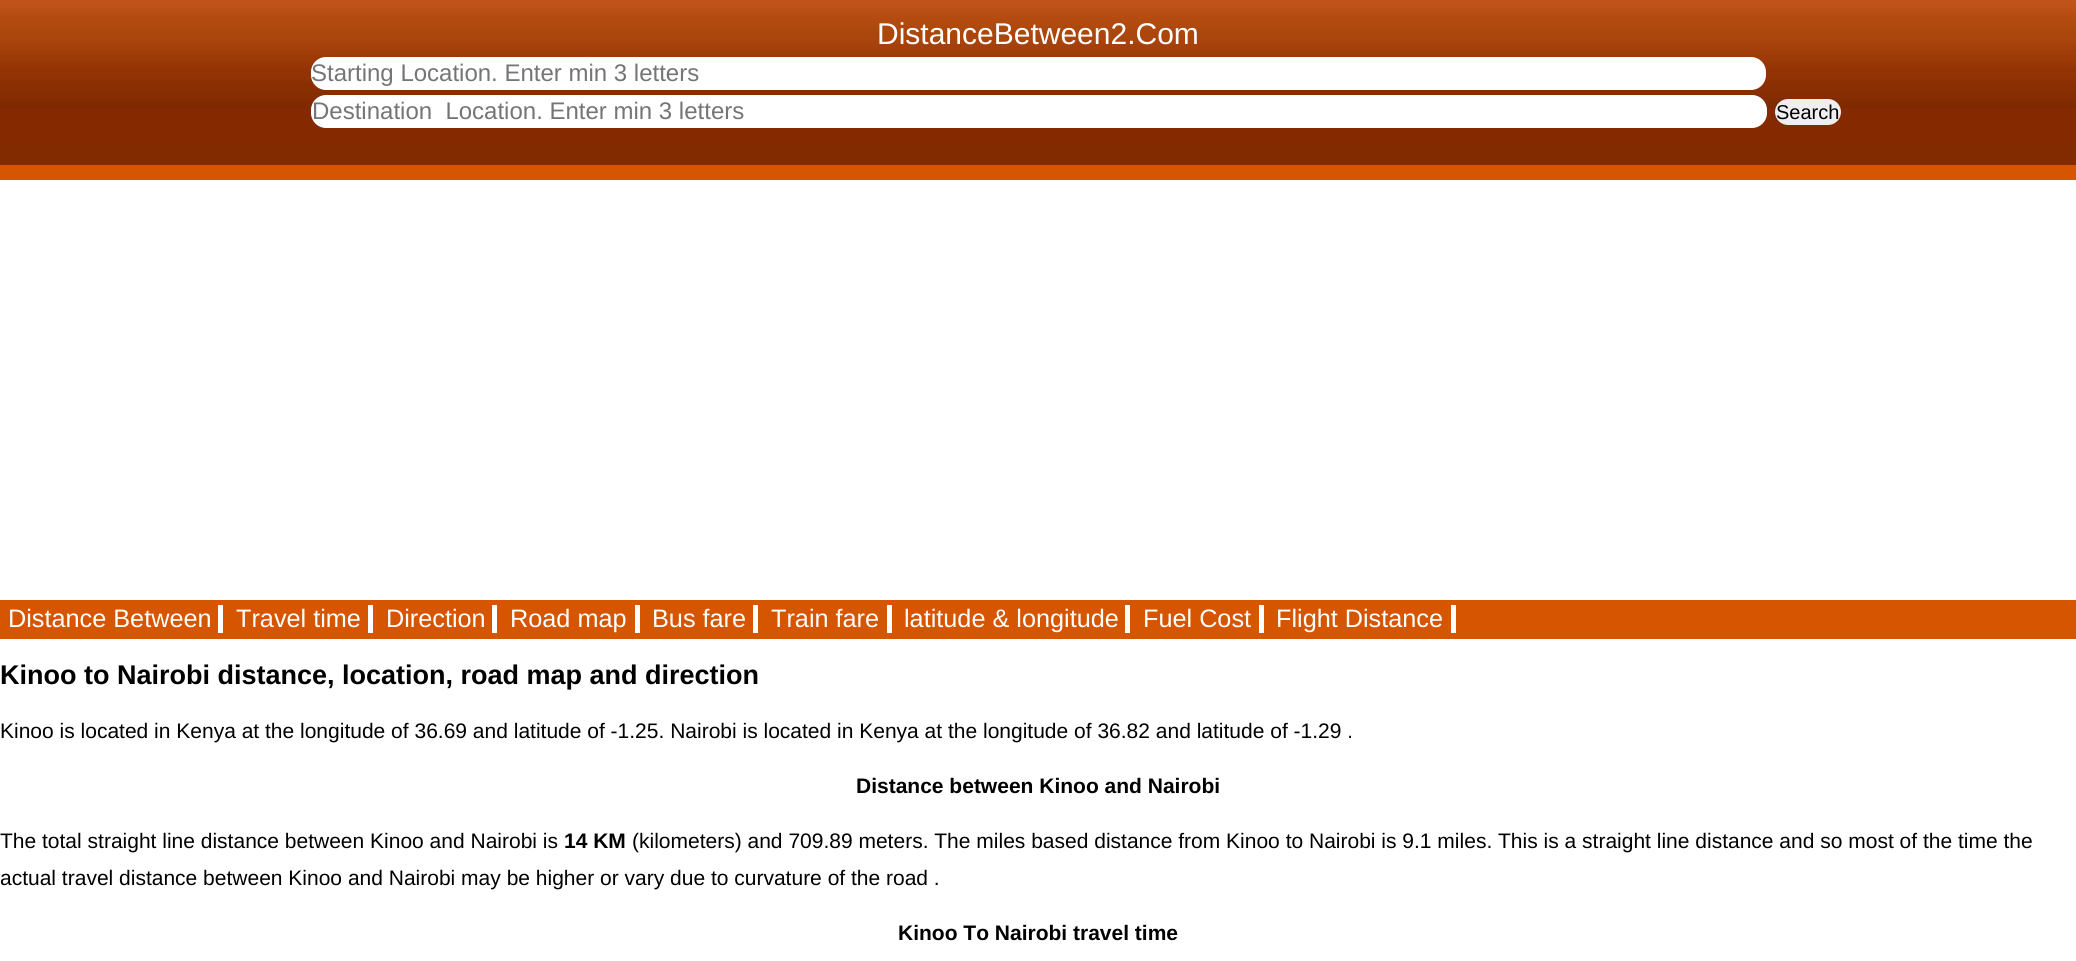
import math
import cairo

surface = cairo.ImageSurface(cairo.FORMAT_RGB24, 2076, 961)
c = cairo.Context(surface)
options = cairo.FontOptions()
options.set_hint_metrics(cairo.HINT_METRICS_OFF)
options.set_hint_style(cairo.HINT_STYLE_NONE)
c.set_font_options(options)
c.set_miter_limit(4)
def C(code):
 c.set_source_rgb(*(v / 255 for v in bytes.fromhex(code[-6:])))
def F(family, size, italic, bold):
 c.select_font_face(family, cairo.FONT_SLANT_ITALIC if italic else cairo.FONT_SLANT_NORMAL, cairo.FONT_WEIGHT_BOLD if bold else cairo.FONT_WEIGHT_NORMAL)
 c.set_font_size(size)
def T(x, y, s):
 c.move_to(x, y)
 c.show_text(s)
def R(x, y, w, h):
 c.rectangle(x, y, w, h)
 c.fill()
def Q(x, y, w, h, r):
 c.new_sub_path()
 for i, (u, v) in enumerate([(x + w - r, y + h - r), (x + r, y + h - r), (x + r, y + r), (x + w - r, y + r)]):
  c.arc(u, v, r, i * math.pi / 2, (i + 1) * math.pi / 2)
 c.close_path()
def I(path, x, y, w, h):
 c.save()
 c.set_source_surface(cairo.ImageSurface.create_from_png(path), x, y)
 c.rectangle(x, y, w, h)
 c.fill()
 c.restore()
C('ffffff')
c.paint()
C('d55500')
R(0,165,2076,15)
I('1.png',0,0,2076,165)
F('Liberation Sans',30,0,0)
C('ffffff')
T(877,44,'DistanceBetween2.Com')
Q(311,57,1455,33,15)
c.fill()
F('Liberation Sans',24,0,0)
C('757575')
T(311,81,'Starting Location. Enter min 3 letters')
C('ffffff')
Q(311,95,1456,33,15)
c.fill()
C('757575')
T(312,119,'Destination  Location. Enter min 3 letters')
C('efefef')
Q(1775,99,66,26,13)
c.fill()
F('Liberation Sans',20,0,0)
C('000000')
T(1776,119,'Search')
C('d55500')
R(0,600,2076,39)
F('Liberation Sans',25.25,0,0)
C('ffffff')
T(8,627,'Distance Between')
R(218,605,5,28)
T(236,627,'Travel time')
R(368,605,5,28)
T(386,627,'Direction')
R(492,605,5,28)
T(510,627,'Road map')
R(635,605,5,28)
T(652,627,'Bus fare')
R(753,605,5,28)
T(771,627,'Train fare')
R(887,605,5,28)
T(904,627,'latitude & longitude')
R(1125,605,5,28)
T(1143,627,'Fuel Cost')
R(1259,605,5,28)
T(1276,627,'Flight Distance')
R(1451,605,5,28)
F('Liberation Sans',27,0,1)
C('000000')
T(0,684,'Kinoo to Nairobi distance, location, road map and direction')
F('Liberation Sans',21,0,0)
T(0,738,'Kinoo is located in Kenya at the longitude of 36.69 and latitude of -1.25. Nairobi is located in Kenya at the longitude of 36.82 and latitude of -1.29 .')
F('Liberation Sans',21,0,1)
T(856,793,'Distance between Kinoo and Nairobi')
F('Liberation Sans',21,0,0)
T(0,848,'The total straight line distance between Kinoo and Nairobi is')
F('Liberation Sans',21,0,1)
T(564,848,'14 KM')
F('Liberation Sans',21,0,0)
T(632,848,'(kilometers) and 709.89 meters. The miles based distance from Kinoo to Nairobi is 9.1 miles. This is a straight line distance and so most of the time the')
T(0,885,'actual travel distance between Kinoo and Nairobi may be higher or vary due to curvature of the road .')
F('Liberation Sans',21,0,1)
T(898,940,'Kinoo To Nairobi travel time')
surface.write_to_png('o.png')
